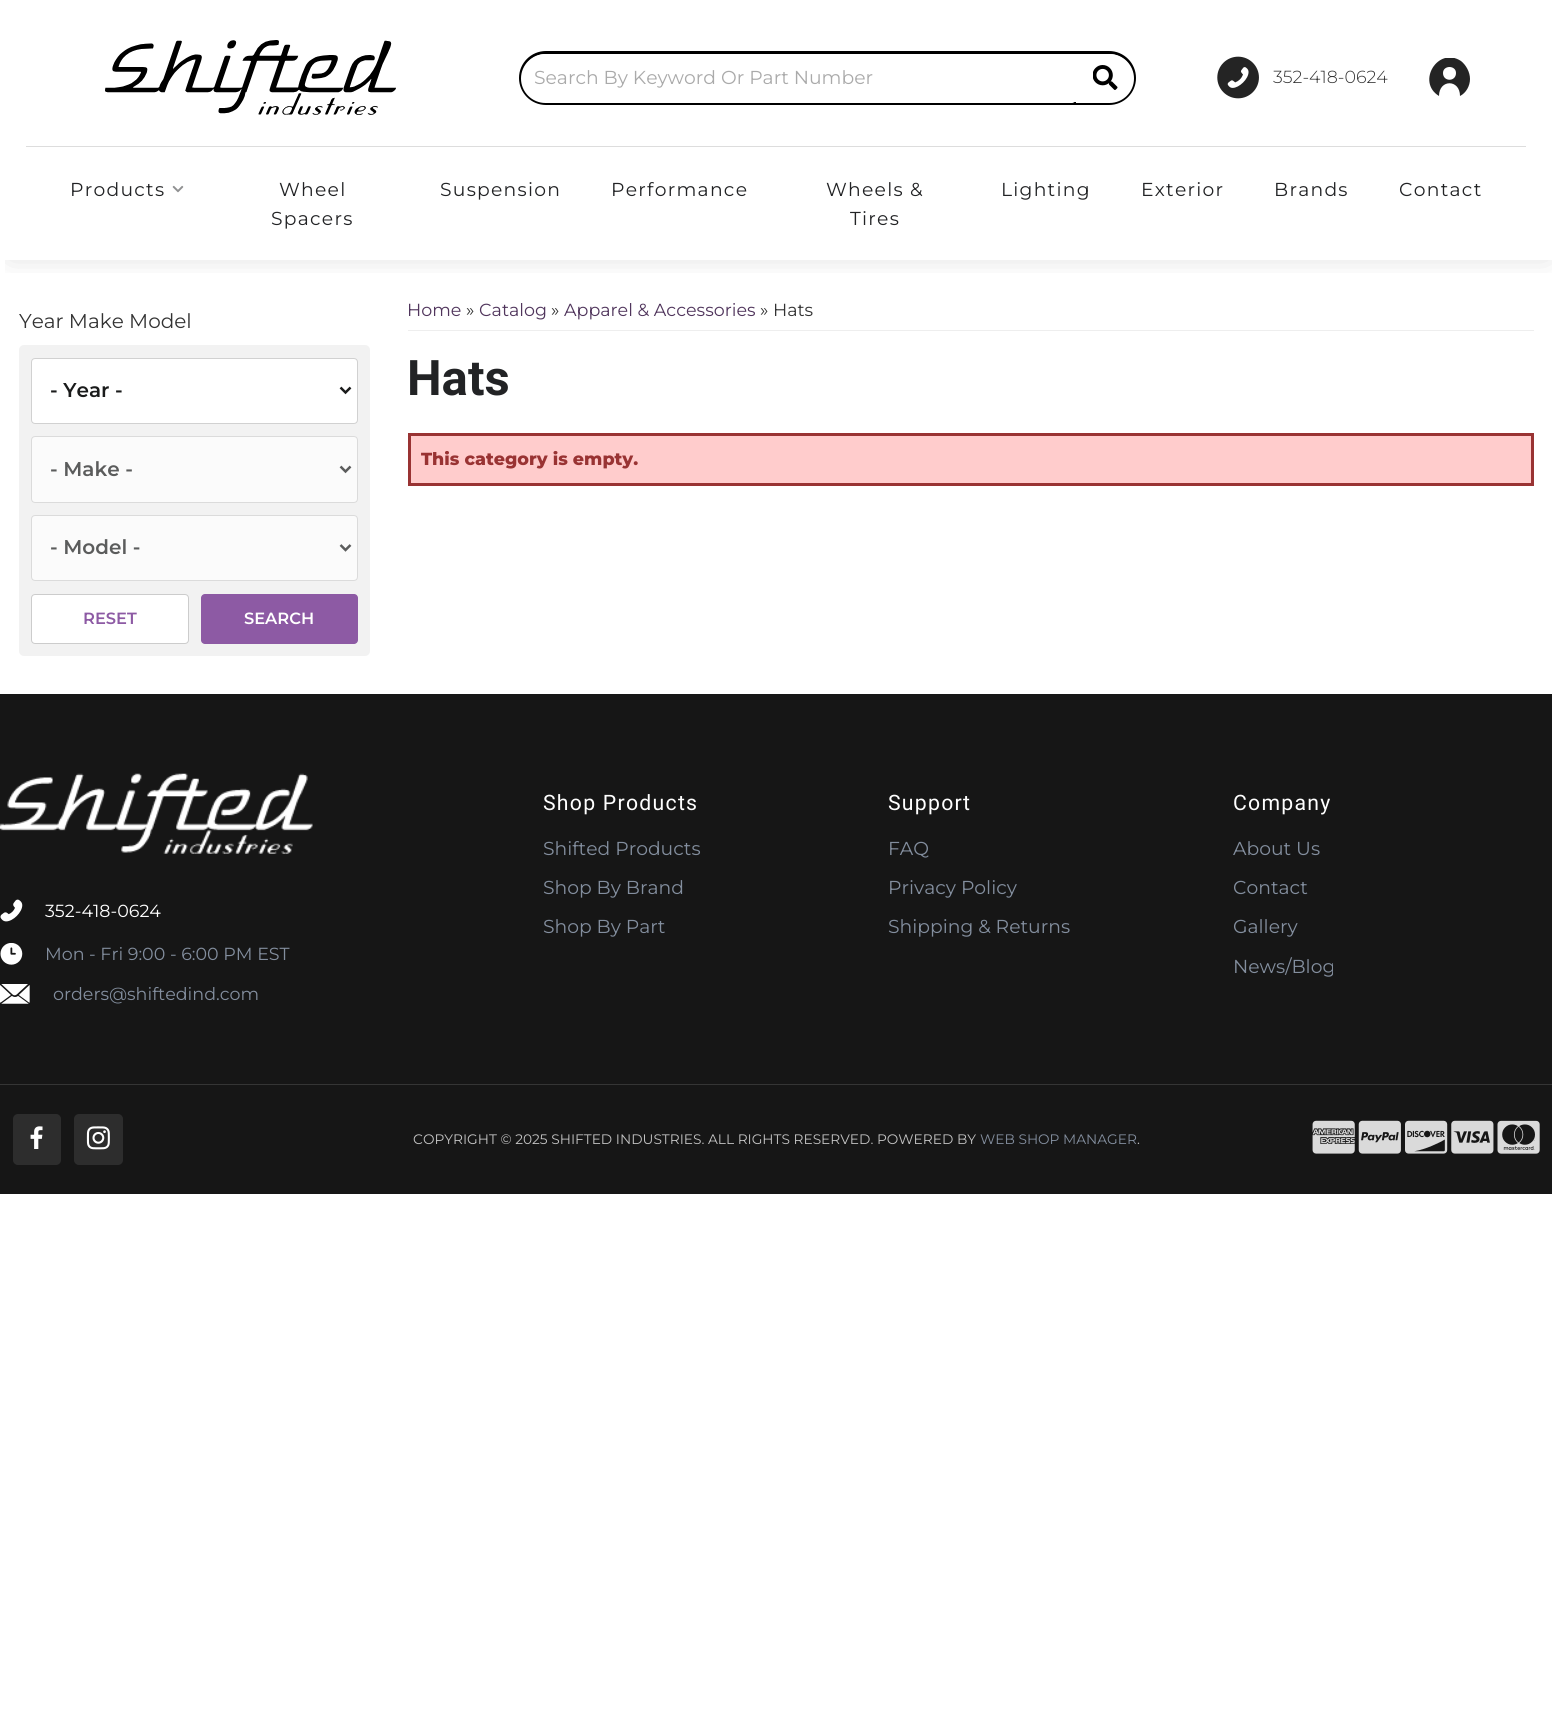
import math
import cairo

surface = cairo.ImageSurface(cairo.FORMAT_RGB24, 1552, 1710)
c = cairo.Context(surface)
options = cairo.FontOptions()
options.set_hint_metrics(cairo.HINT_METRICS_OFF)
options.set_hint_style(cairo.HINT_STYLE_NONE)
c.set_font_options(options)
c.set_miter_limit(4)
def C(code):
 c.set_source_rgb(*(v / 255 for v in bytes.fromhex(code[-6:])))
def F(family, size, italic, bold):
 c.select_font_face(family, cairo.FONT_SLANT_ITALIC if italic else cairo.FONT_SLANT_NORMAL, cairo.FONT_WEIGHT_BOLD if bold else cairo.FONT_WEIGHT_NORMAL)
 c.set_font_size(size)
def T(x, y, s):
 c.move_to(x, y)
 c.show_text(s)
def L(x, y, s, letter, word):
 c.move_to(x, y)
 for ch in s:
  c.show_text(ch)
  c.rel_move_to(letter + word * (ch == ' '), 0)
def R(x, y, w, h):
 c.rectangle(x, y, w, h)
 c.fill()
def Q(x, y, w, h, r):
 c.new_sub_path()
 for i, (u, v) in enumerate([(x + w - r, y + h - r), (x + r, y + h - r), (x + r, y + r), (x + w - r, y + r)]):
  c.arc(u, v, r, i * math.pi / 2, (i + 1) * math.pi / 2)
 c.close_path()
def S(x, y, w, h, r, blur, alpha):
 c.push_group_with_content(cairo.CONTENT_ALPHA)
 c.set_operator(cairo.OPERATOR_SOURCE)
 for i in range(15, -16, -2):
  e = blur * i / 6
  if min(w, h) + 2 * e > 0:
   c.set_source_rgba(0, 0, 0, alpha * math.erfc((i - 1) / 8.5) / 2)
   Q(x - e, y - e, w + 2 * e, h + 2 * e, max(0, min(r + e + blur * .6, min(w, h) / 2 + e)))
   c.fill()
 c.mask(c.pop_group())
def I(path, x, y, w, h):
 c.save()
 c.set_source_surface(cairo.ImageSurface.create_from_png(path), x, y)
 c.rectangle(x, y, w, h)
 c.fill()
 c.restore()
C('ffffff')
c.paint()
c.save()
c.rectangle(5,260,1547,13)
c.clip()
C('000000')
S(10,11,1538,245,0,15.5,.14)
c.restore()
I('1.png',105,40,291,75)
Q(520.5,52.5,614,51,25.5)
C('000000')
c.set_line_width(3)
c.stroke()
C('ffffff')
c.new_path()
c.move_to(545.5,54)
c.line_to(1072,54)
c.curve_to(1074,54,1076,56,1076,58)
c.line_to(1076,99)
c.curve_to(1076,101,1074,103,1072,103)
c.line_to(545.5,103)
c.curve_to(532,103,521,92,521,78.5)
c.curve_to(521,65,532,54,545.5,54)
c.close_path()
c.fill()
F('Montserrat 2 Thin',18.75,0,0)
C('aaaaaa')
T(534,84,'Search By Keyword Or Part Number')
C('ffffff')
c.new_path()
c.move_to(1076,54)
c.line_to(1109.5,54)
c.curve_to(1123,54,1134,65,1134,78.5)
c.curve_to(1134,92,1123,103,1109.5,103)
c.line_to(1076,103)
c.close_path()
c.fill()
I('2.png',1093,65,25,25)
I('3.png',1217,56,42,43)
F('Montserrat Thin',17.5,0,0)
C('333333')
T(1273,83,'352-418-0624')
c.save()
c.rectangle(1429,58,41,40)
c.clip()
C('242424')
c.new_path()
c.move_to(1470,79)
c.curve_to(1470,86,1466,93,1460,96)
c.curve_to(1460,79,1439,79,1439,96)
c.curve_to(1416,82,1438,46,1461,61)
c.curve_to(1466,65,1470,72,1470,79)
c.close_path()
c.move_to(1456,73)
c.curve_to(1456,65,1443,65,1443,73)
c.curve_to(1443,82,1456,82,1456,73)
c.close_path()
c.fill()
c.restore()
C('dddddd')
R(26,146,1500,1)
F('Montserrat 2 Thin',18.75,0,0)
C('222325')
L(70,196,'Products',1.25,0)
I('4.png',172,185,12,8)
L(279,196,'Wheel',1.25,0)
L(271,225,'Spacers',1.25,0)
L(440,196,'Suspension',1.25,0)
L(611,196,'Performance',1.25,0)
L(826,196,'Wheels &',1.25,0)
L(850,225,'Tires',1.25,0)
L(1001,196,'Lighting',1.25,0)
L(1141,196,'Exterior',1.25,0)
L(1274,196,'Brands',1.25,0)
L(1399,196,'Contact',1.25,0)
F('Montserrat 2 Thin',20,0,0)
C('333333')
T(19,328,'Year Make Model')
C('f2f2f2')
Q(19,345,351,311,5)
c.fill()
C('ffffff')
Q(31.5,358.5,326,65,3.5)
c.fill_preserve()
C('d1d1d1')
c.set_line_width(1)
c.stroke()
c.new_path()
c.move_to(340.5,387.5)
c.line_to(345.5,392.5)
c.line_to(350.5,387.5)
C('1a1b1b')
c.set_line_width(2.5)
c.stroke()
F('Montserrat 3 Thin',20,0,0)
T(50,397,'- Year -')
C('fbfbfb')
Q(31.5,436.5,326,66,3.5)
c.fill_preserve()
C('dbdbdb')
c.set_line_width(1)
c.stroke()
c.new_path()
c.move_to(340.5,466.5)
c.line_to(345.5,471.5)
c.line_to(350.5,466.5)
C('5b5c5c')
c.set_line_width(2.5)
c.stroke()
T(50,476,'- Make -')
C('fbfbfb')
Q(31.5,515.5,326,65,3.5)
c.fill_preserve()
C('dbdbdb')
c.set_line_width(1)
c.stroke()
c.new_path()
c.move_to(340.5,545)
c.line_to(345.5,550)
c.line_to(350.5,545)
C('5b5c5c')
c.set_line_width(2.5)
c.stroke()
T(50,554,'- Model -')
C('ffffff')
Q(31.5,594.5,157,49,3.5)
c.fill_preserve()
C('cccccc')
c.set_line_width(1)
c.stroke()
F('Montserrat 3 Thin',16.25,0,0)
C('8d5aa4')
T(83,624,'RESET')
Q(201,594,157,50,4)
c.fill()
C('ffffff')
T(244,624,'SEARCH')
C('eeeeee')
R(408,330,1126,1)
F('Montserrat 2 Thin',17.5,0,0)
C('50355c')
T(407,316,'Home')
C('333333')
T(466,316,'»')
C('50355c')
T(479,316,'Catalog')
C('333333')
T(551,316,'»')
C('50355c')
T(564,316,'Apparel & Accessories')
C('333333')
T(760,316,'» Hats')
F('Roboto',49,0,1)
C('222325')
T(407,395,'Hats')
C('ffcccc')
c.rectangle(409.5,434.5,1123,50)
c.fill_preserve()
C('993333')
c.set_line_width(3)
c.stroke()
F('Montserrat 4 Thin',17.5,0,0)
T(421,465,'This category is empty.')
C('161616')
R(0,694,1552,500)
I('5.png',0,773,313,81)
I('6.png',0,899,23,23)
F('Montserrat 2 Thin',17.5,0,0)
C('ffffff')
T(45,917,'352-418-0624')
I('7.png',0,943,23,22)
C('838e9e')
T(45,960,'Mon - Fri 9:00 - 6:00 PM EST')
I('8.png',0,984,30,20)
T(53,1000,'orders@shiftedind.com')
F('Roboto',21.25,0,0)
C('ffffff')
L(543,810,'Shop Products',1.25,0)
F('Montserrat 2 Thin',18.75,0,0)
C('838e9e')
T(543,855,'Shifted Products')
T(543,894,'Shop By Brand')
T(543,933,'Shop By Part')
F('Roboto',21.25,0,0)
C('ffffff')
L(888,810,'Support',1.25,0)
F('Montserrat 2 Thin',18.75,0,0)
C('838e9e')
T(888,855,'FAQ')
T(888,894,'Privacy Policy')
T(888,933,'Shipping & Returns')
F('Roboto',21.25,0,0)
C('ffffff')
L(1233,810,'Company',1.25,0)
F('Montserrat 2 Thin',18.75,0,0)
C('838e9e')
T(1233,855,'About Us')
T(1233,894,'Contact')
T(1233,933,'Gallery')
T(1233,973,'News/Blog')
C('353535')
R(0,1084,1552,1)
C('2d2d2d')
Q(13,1114,48,51,5)
c.fill()
I('9.png',30,1126,13,23)
Q(74,1114,49,51,5)
c.fill()
I('10.png',86,1126,24,24)
F('Montserrat 2 Thin',13.75,0,0)
C('c2c2c2')
T(413,1144,'COPYRIGHT © 2025 SHIFTED INDUSTRIES. ALL RIGHTS RESERVED. POWERED BY')
C('838e9e')
T(980,1144,'WEB SHOP MANAGER')
C('c2c2c2')
T(1137,1144,'.')
I('11.png',1312,1120,43,34)
I('12.png',1358,1120,43,34)
I('13.png',1405,1120,43,34)
I('14.png',1451,1120,43,34)
I('15.png',1497,1120,43,34)
surface.write_to_png('o.png')
